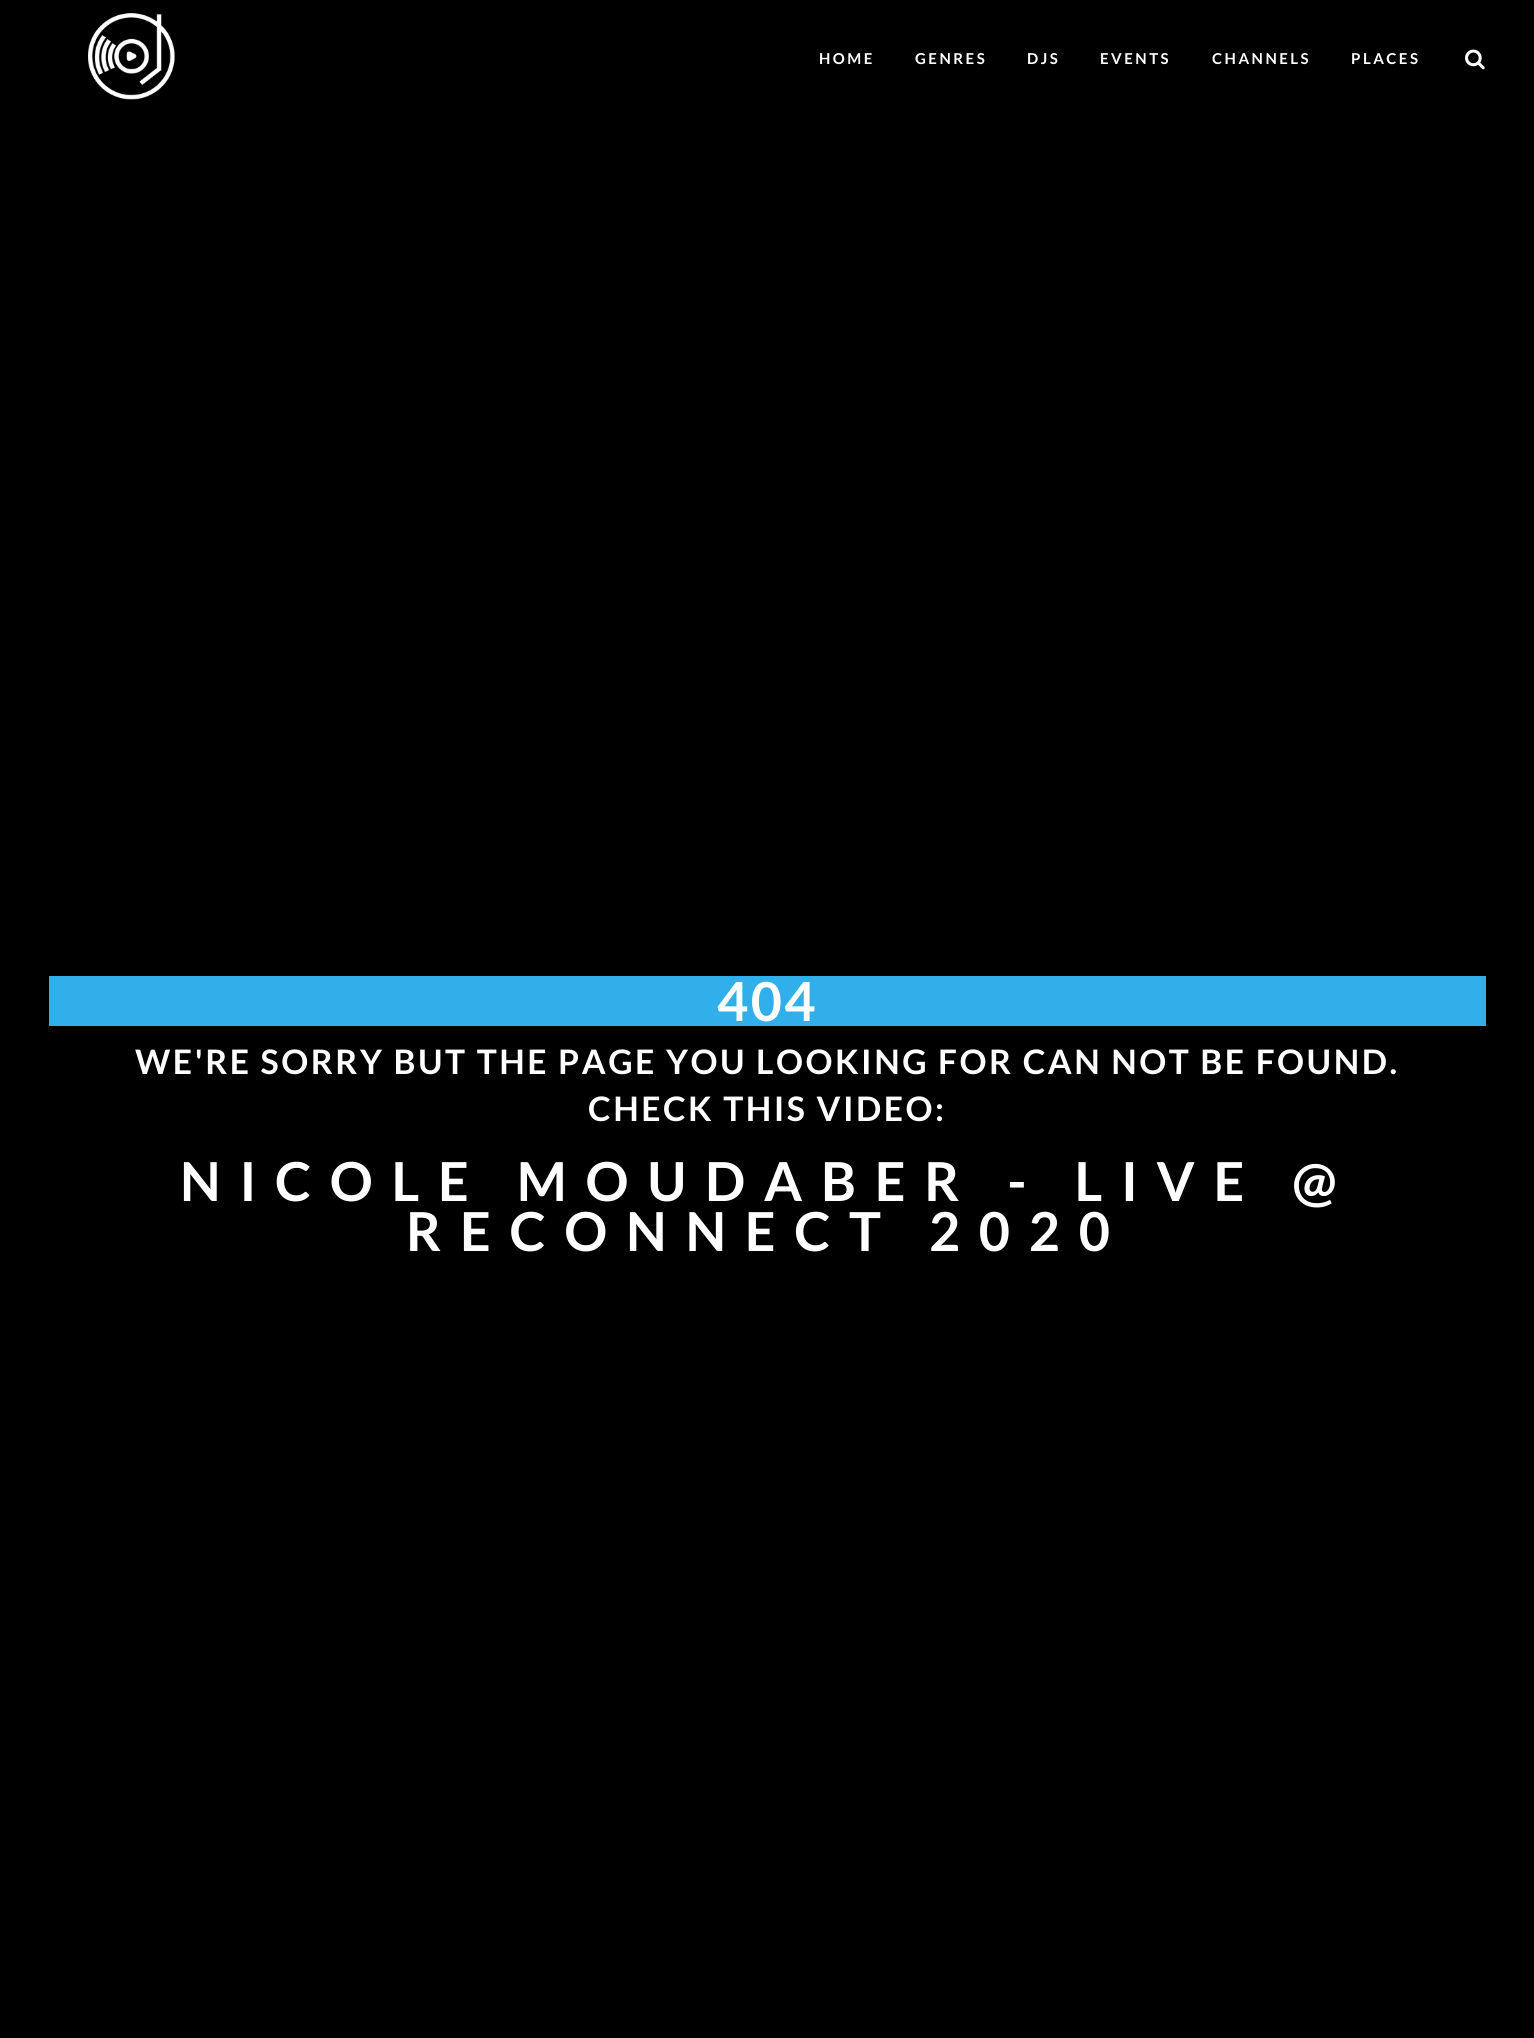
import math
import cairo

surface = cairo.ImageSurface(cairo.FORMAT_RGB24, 1534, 2038)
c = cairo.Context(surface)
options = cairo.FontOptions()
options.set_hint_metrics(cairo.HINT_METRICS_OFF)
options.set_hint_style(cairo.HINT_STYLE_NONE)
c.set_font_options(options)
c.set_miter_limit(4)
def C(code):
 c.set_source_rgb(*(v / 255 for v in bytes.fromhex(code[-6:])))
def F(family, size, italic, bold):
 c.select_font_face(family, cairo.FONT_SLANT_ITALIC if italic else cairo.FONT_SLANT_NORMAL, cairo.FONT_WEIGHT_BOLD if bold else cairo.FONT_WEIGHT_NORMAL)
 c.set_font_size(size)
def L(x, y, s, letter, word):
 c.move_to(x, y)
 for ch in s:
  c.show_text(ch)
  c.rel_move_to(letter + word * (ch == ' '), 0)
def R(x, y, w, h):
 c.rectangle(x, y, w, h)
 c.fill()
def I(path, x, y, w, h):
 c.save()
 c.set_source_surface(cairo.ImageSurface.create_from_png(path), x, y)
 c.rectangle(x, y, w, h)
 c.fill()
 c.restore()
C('000000')
c.paint()
I('1.png',88,13,87,87)
F('Lato',15,0,1)
C('ffffff')
L(819,64,'HOME',2.5,0)
L(915,64,'GENRES',2.5,0)
L(1027,64,'DJS',2.5,0)
L(1100,64,'EVENTS',2.5,0)
L(1212,64,'CHANNELS',2.5,0)
L(1351,64,'PLACES',2.5,0)
I('2.png',1465,49,20,21)
C('30afea')
R(49,976,1437,50)
F('Lato',53.75,0,1)
C('ffffff')
L(717,1021,'404',2.5,0)
F('Lato',33.75,0,1)
L(135,1074,'WE\'RE SORRY BUT THE PAGE YOU LOOKING FOR CAN NOT BE FOUND.',2.5,0)
L(588,1121,'CHECK THIS VIDEO:',2.5,0)
F('Lato',53.75,0,1)
L(180,1201,'NICOLE MOUDABER - LIVE @',18.75,0)
L(406,1251,'RECONNECT 2020',18.75,0)
surface.write_to_png('o.png')
